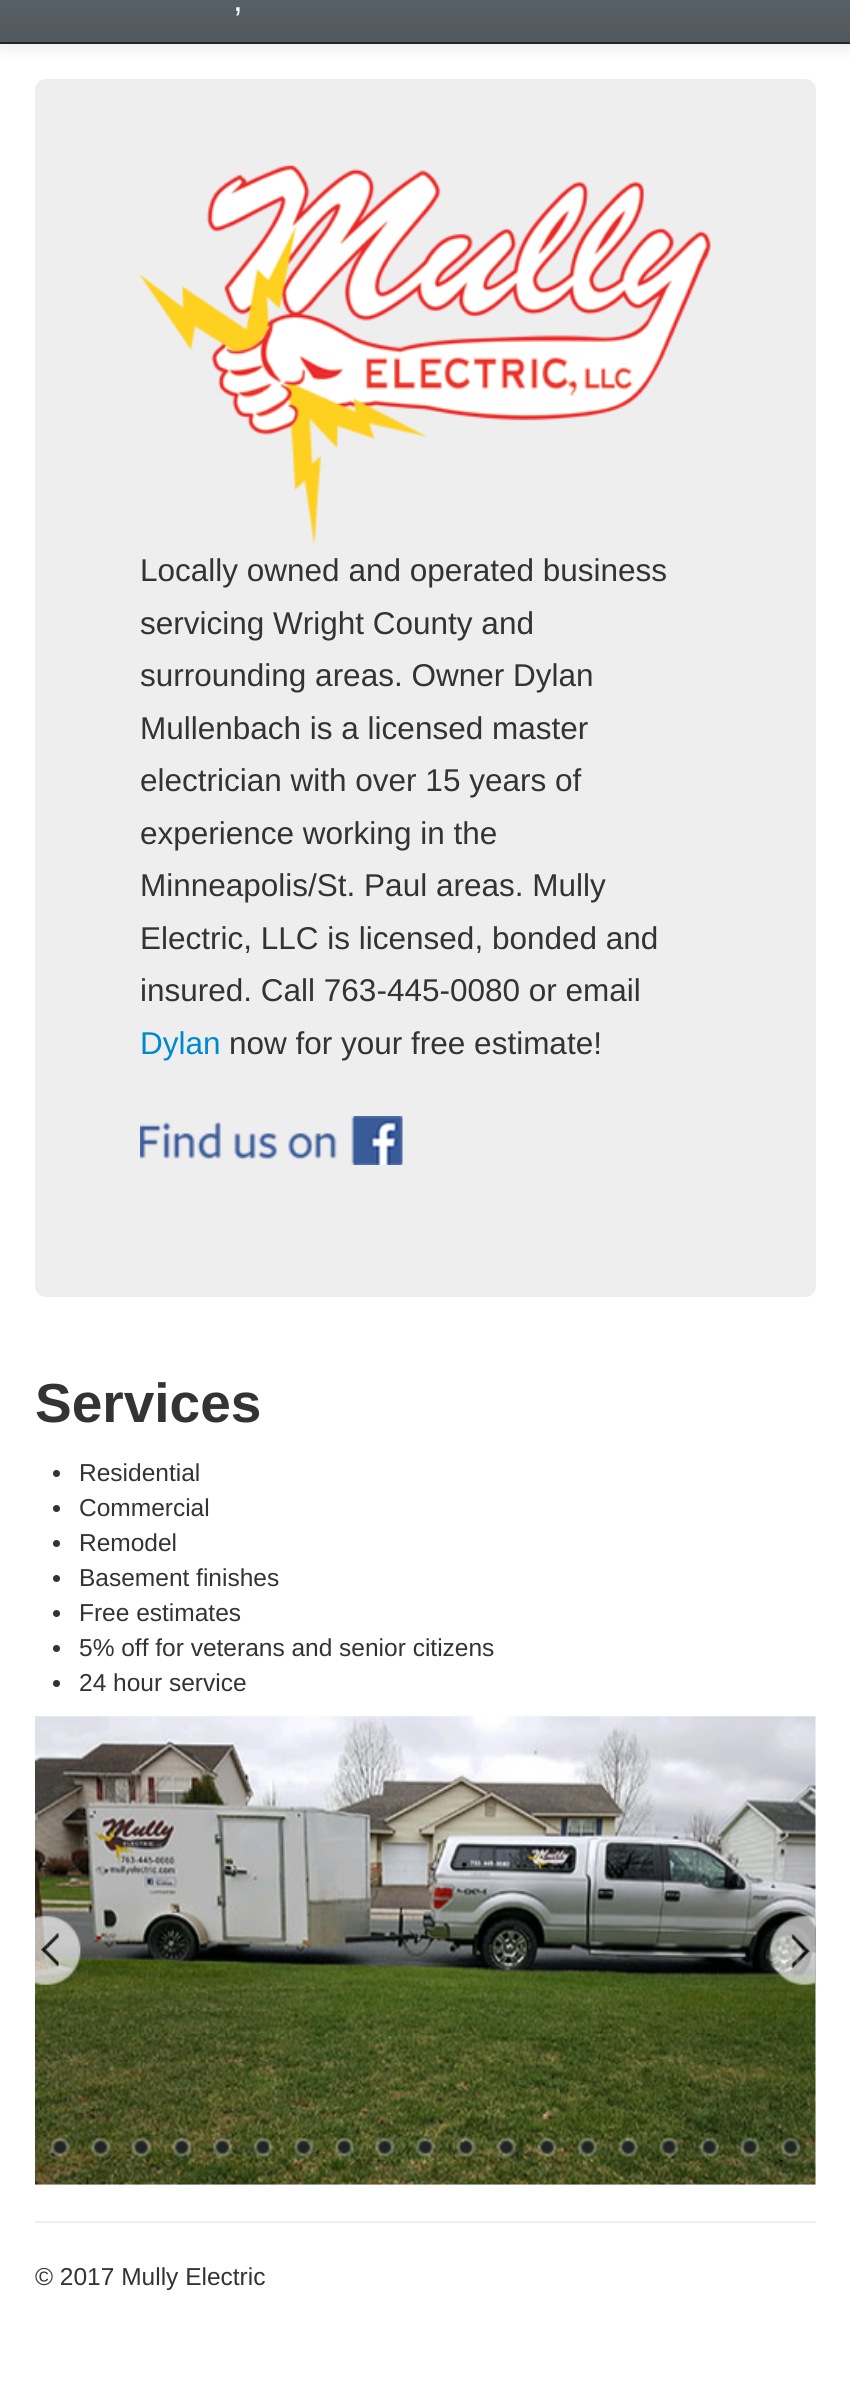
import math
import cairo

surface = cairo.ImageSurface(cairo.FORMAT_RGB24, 850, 2381)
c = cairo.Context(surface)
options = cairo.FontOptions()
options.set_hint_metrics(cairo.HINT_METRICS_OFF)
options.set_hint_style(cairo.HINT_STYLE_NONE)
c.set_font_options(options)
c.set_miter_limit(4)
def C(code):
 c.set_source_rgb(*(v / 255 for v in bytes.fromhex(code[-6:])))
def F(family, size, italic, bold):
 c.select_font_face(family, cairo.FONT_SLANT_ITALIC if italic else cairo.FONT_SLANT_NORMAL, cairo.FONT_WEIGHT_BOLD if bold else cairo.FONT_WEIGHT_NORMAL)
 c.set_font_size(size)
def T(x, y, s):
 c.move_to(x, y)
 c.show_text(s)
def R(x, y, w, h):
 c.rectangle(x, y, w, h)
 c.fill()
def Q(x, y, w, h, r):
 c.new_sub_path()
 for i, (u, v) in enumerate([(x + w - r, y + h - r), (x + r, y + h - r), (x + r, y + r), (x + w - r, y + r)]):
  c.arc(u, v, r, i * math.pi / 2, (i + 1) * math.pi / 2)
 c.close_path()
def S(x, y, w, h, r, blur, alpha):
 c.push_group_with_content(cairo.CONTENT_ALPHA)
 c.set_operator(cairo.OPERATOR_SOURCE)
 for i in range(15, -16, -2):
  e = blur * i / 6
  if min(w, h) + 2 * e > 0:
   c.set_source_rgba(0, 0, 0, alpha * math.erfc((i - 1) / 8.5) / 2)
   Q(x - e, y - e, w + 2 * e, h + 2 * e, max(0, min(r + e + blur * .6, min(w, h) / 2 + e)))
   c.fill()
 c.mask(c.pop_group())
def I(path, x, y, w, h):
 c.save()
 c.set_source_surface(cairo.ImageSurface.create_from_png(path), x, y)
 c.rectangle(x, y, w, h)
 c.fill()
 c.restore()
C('ffffff')
c.paint()
C('000000')
S(0,-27,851,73,0,9,.1)
gradient = cairo.LinearGradient(425,-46,425,42)
gradient.add_color_stop_rgba(0,0.369,0.404,0.431,1)
gradient.add_color_stop_rgba(1,0.318,0.349,0.373,1)
c.set_source(gradient)
R(0,0,850,42)
C('252525')
R(0,42,850,2)
F('Liberation Sans',35,0,0)
C('ffffff')
T(233,11,',')
C('eeeeee')
Q(35,79,781,1218,11)
c.fill()
I('1.png',140,165,571,379)
F('Liberation Sans',31.5,0,0)
C('333333')
T(140,581,'Locally owned and operated business')
T(140,634,'servicing Wright County and')
T(140,686,'surrounding areas. Owner Dylan')
T(140,739,'Mullenbach is a licensed master')
T(140,791,'electrician with over 15 years of')
T(140,844,'experience working in the')
T(140,896,'Minneapolis/St. Paul areas. Mully')
T(140,949,'Electric, LLC is licensed, bonded and')
T(140,1001,'insured. Call 763-445-0080 or email')
C('0088cc')
T(140,1054,'Dylan')
C('333333')
T(229,1054,'now for your free estimate!')
I('2.png',140,1116,263,49)
F('Liberation Sans',55,0,1)
T(35,1422,'Services')
c.new_path()
c.arc(56.5,1473.5,3.5,0,2 * math.pi)
c.fill()
F('Liberation Sans',24.5,0,0)
T(79,1481,'Residential')
c.new_path()
c.arc(56.5,1508.5,3.5,0,2 * math.pi)
c.fill()
T(79,1516,'Commercial')
c.new_path()
c.arc(56.5,1543.5,3.5,0,2 * math.pi)
c.fill()
T(79,1551,'Remodel')
c.new_path()
c.arc(56.5,1578.5,3.5,0,2 * math.pi)
c.fill()
T(79,1586,'Basement finishes')
c.new_path()
c.arc(56.5,1613.5,3.5,0,2 * math.pi)
c.fill()
T(79,1621,'Free estimates')
c.new_path()
c.arc(56.5,1648.5,3.5,0,2 * math.pi)
c.fill()
T(79,1656,'5% off for veterans and senior citizens')
c.new_path()
c.arc(56.5,1683.5,3.5,0,2 * math.pi)
c.fill()
T(79,1691,'24 hour service')
I('3.png',35,1716,781,469)
I('4.png',35,1915,46,71)
I('5.png',769,1915,47,71)
I('6.png',50,2137,20,21)
I('7.png',90,2137,21,21)
I('8.png',131,2137,21,21)
I('9.png',171,2137,21,21)
I('10.png',212,2137,21,21)
I('11.png',253,2137,20,21)
I('12.png',293,2137,21,21)
I('13.png',334,2137,21,21)
I('14.png',374,2137,21,21)
I('15.png',415,2137,21,21)
I('16.png',455,2137,21,21)
I('17.png',496,2137,21,21)
I('18.png',537,2137,20,21)
I('19.png',577,2137,21,21)
I('20.png',618,2137,21,21)
I('21.png',659,2137,20,21)
I('22.png',699,2137,21,21)
I('23.png',740,2137,20,21)
I('24.png',780,2137,21,21)
C('eeeeee')
R(35,2221,781,2)
C('333333')
T(35,2285,'© 2017 Mully Electric')
surface.write_to_png('o.png')
